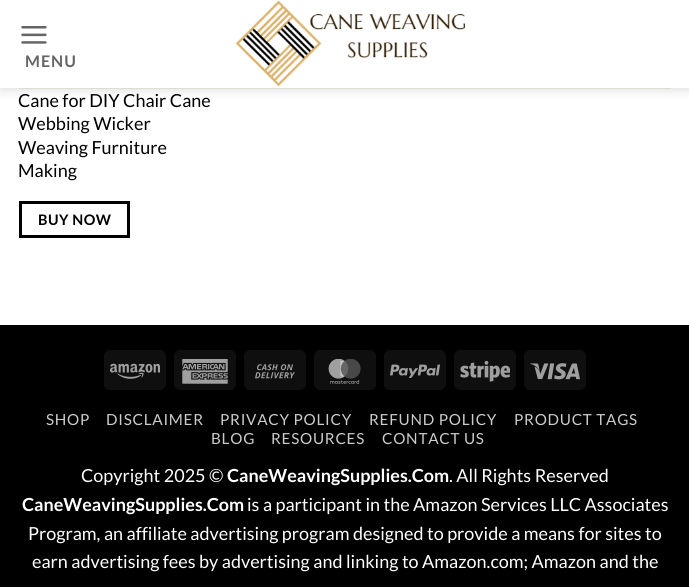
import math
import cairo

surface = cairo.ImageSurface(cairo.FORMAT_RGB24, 689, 587)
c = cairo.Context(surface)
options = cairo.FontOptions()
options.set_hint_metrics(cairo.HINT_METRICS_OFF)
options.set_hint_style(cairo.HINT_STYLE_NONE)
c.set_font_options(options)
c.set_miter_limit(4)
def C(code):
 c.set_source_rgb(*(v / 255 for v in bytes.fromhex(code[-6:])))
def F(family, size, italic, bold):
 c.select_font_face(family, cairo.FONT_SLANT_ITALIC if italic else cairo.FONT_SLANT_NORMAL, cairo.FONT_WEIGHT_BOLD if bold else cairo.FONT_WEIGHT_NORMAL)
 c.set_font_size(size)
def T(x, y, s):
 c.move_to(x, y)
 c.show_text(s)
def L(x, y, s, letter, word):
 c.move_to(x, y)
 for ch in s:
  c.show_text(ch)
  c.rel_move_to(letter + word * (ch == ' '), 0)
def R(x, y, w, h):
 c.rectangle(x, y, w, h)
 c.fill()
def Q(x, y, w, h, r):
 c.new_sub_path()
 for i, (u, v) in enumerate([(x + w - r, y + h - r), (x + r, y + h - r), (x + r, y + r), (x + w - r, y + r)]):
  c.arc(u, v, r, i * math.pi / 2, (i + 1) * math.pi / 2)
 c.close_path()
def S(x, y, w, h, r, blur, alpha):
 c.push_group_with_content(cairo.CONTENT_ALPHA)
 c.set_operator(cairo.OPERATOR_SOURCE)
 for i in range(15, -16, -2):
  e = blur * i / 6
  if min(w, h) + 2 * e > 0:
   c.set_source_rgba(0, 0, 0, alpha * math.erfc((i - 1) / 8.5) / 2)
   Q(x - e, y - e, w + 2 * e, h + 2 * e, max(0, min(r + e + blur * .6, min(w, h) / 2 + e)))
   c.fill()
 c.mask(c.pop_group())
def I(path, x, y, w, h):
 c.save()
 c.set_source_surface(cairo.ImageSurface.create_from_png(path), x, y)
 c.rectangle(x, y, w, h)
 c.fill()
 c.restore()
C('ffffff')
c.paint()
c.save()
c.set_fill_rule(cairo.FILL_RULE_EVEN_ODD)
c.new_path()
c.move_to(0,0)
c.line_to(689,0)
c.line_to(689,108)
c.line_to(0,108)
c.close_path()
c.move_to(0,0)
c.line_to(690,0)
c.line_to(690,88)
c.line_to(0,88)
c.close_path()
c.clip()
C('000000')
S(1,1,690,88,0,6,.15)
c.restore()
I('1.png',21,26,26,18)
F('Lato',16,0,1)
C('656565')
L(25,67,'MENU',1,0)
I('2.png',235,0,230,87)
C('dfdbd5')
R(19,88,652,1)
c.set_source_rgba(1,1,1,0.9)
R(0,87,689,1)
F('Lato',18,0,0)
C('000000')
T(18,107,'Cane for DIY Chair Cane')
T(18,130,'Webbing Wicker')
T(18,154,'Weaving Furniture')
T(18,177,'Making')
c.rectangle(20.5,202.5,108,34)
c.set_line_width(3)
c.stroke()
F('Lato',14.5,0,1)
L(38,225,'BUY NOW',.5,0)
R(0,325,689,262)
C('0f0f0f')
Q(104,350,62,40,6)
c.fill()
I('3.png',110,363,50,16)
Q(174,350,62,40,6)
c.fill()
I('4.png',182,359,46,25)
Q(244,350,62,40,6)
c.fill()
I('5.png',255,364,40,15)
Q(314,350,62,40,6)
c.fill()
I('6.png',328,359,33,25)
Q(384,350,62,40,6)
c.fill()
I('7.png',390,364,50,14)
Q(454,350,62,40,6)
c.fill()
I('8.png',460,360,50,22)
Q(524,350,62,40,6)
c.fill()
I('9.png',530,363,50,17)
F('Lato',15.25,0,0)
C('cccccc')
L(46,425,'SHOP',.75,0)
L(106,425,'DISCLAIMER',.75,0)
L(220,425,'PRIVACY POLICY',.75,0)
L(369,425,'REFUND POLICY',.75,0)
L(514,425,'PRODUCT TAGS',.75,0)
L(211,444,'BLOG',.75,0)
L(271,444,'RESOURCES',.75,0)
L(382,444,'CONTACT US',.75,0)
F('Lato',18,0,0)
C('ffffff')
T(81,482,'Copyright 2025 ©')
F('Lato',18,0,1)
T(227,482,'CaneWeavingSupplies.Com')
F('Lato',18,0,0)
T(449,482,'. All Rights Reserved')
F('Lato',18,0,1)
T(22,511,'CaneWeavingSupplies.Com')
F('Lato',18,0,0)
T(247,511,'is a participant in the Amazon Services LLC Associates')
T(28,540,'Program, an affiliate advertising program designed to provide a means for sites to')
T(32,568,'earn advertising fees by advertising and linking to Amazon.com; Amazon and the')
surface.write_to_png('o.png')
